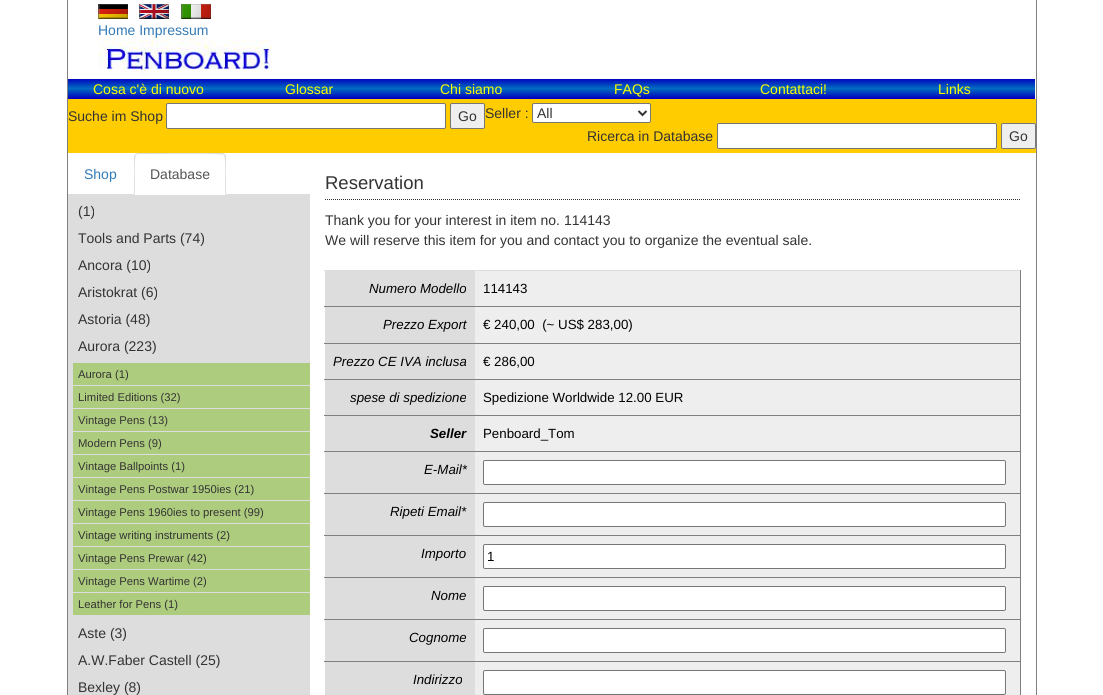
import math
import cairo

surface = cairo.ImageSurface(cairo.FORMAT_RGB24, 1103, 695)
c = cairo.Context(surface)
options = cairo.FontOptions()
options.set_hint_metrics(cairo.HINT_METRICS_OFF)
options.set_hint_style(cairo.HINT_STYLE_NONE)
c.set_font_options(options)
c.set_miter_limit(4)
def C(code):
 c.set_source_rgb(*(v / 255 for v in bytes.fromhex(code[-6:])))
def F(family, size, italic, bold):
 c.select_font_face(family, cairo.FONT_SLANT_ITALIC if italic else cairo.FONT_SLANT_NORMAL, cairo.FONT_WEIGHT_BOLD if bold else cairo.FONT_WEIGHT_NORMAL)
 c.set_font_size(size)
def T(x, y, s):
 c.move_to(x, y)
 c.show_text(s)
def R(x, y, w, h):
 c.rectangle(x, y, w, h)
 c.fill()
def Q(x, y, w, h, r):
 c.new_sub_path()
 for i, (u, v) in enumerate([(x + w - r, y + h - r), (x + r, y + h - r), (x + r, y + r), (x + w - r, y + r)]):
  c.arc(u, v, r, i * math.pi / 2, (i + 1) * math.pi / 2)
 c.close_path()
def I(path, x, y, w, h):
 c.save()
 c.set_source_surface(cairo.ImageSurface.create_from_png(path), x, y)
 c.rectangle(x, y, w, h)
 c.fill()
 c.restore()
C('ffffff')
c.paint()
C('808080')
R(1036,0,1,695)
R(67,0,1,695)
I('1.png',98,4,30,15)
I('2.png',139,4,30,15)
I('3.png',181,4,30,15)
F('Liberation Sans',14,0,0)
C('337ab7')
T(98,35,'Home Impressum')
I('4.png',98,40,174,36)
I('5.png',68,79,161,20)
C('ffff00')
T(93,94,'Cosa c\'è di nuovo')
I('5.png',229,79,161,20)
T(285,94,'Glossar')
I('5.png',390,79,161,20)
T(440,94,'Chi siamo')
I('6.png',551,79,162,20)
T(614,94,'FAQs')
I('5.png',713,79,161,20)
T(760,94,'Contattaci!')
I('5.png',874,79,161,20)
T(938,94,'Links')
C('ffcc00')
R(68,99,968,54)
C('333333')
T(68,121,'Suche im Shop')
C('ffffff')
Q(166.5,103.5,279,25,1.5)
c.fill_preserve()
C('767676')
c.set_line_width(1)
c.stroke()
C('efefef')
Q(450.5,103.5,34,25,1.5)
c.fill_preserve()
C('767676')
c.stroke()
C('333333')
T(458,121,'Go')
T(485,118,'Seller :')
C('ffffff')
Q(532.5,103.5,118,19,1.5)
c.fill_preserve()
C('767676')
c.stroke()
c.new_path()
c.move_to(638.5,111)
c.line_to(642.5,115)
c.line_to(646.5,111)
C('333333')
c.set_line_width(2)
c.stroke()
T(537,118,'All')
T(587,141,'Ricerca in Database')
C('ffffff')
Q(717.5,123.5,279,25,1.5)
c.fill_preserve()
C('767676')
c.set_line_width(1)
c.stroke()
C('efefef')
Q(1001.5,123.5,34,25,1.5)
c.fill_preserve()
C('767676')
c.stroke()
C('333333')
T(1009,141,'Go')
C('dddddd')
R(68,194,242,501)
C('337ab7')
T(84,179,'Shop')
C('ffffff')
c.new_path()
c.move_to(138,153)
c.line_to(222,153)
c.curve_to(224,153,226,155,226,157)
c.line_to(226,195)
c.line_to(134,195)
c.line_to(134,157)
c.curve_to(134,155,136,153,138,153)
c.close_path()
c.fill()
C('dddddd')
c.new_path()
c.move_to(138,153)
c.line_to(135,154)
c.line_to(136,155)
c.line_to(138,154)
c.line_to(152,154)
c.curve_to(160,154,222,153,224,155)
c.line_to(225,154)
c.line_to(222,153)
c.close_path()
c.fill()
c.new_path()
c.move_to(226,195)
c.line_to(226,157)
c.curve_to(226,156,226,155,225,154)
c.line_to(224,155)
c.curve_to(226,157,225,189,225,194)
c.close_path()
c.fill()
c.new_path()
c.move_to(134,195)
c.line_to(135,194)
c.curve_to(135,189,134,157,136,155)
c.line_to(135,154)
c.line_to(134,157)
c.close_path()
c.fill()
C('555555')
T(150,179,'Database')
C('333333')
T(78,216,'(1)')
T(78,243,'Tools and Parts (74)')
T(78,270,'Ancora (10)')
T(78,297,'Aristokrat (6)')
T(78,324,'Astoria (48)')
T(78,351,'Aurora (223)')
C('aecc7e')
R(73,363,237,22)
F('Liberation Sans',11.25,0,0)
C('333333')
T(78,378,'Aurora (1)')
C('aecc7e')
R(73,386,237,22)
C('333333')
T(78,401,'Limited Editions (32)')
C('aecc7e')
R(73,409,237,22)
C('333333')
T(78,424,'Vintage Pens (13)')
C('aecc7e')
R(73,432,237,22)
C('333333')
T(78,447,'Modern Pens (9)')
C('aecc7e')
R(73,455,237,22)
C('333333')
T(78,470,'Vintage Ballpoints (1)')
C('aecc7e')
R(73,478,237,22)
C('333333')
T(78,493,'Vintage Pens Postwar 1950ies (21)')
C('aecc7e')
R(73,501,237,22)
C('333333')
T(78,516,'Vintage Pens 1960ies to present (99)')
C('aecc7e')
R(73,524,237,22)
C('333333')
T(78,539,'Vintage writing instruments (2)')
C('aecc7e')
R(73,547,237,22)
C('333333')
T(78,562,'Vintage Pens Prewar (42)')
C('aecc7e')
R(73,570,237,22)
C('333333')
T(78,585,'Vintage Pens Wartime (2)')
C('aecc7e')
R(73,593,237,22)
C('333333')
T(78,608,'Leather for Pens (1)')
F('Liberation Sans',14,0,0)
T(78,638,'Aste (3)')
T(78,665,'A.W.Faber Castell (25)')
T(78,692,'Bexley (8)')
c.new_path()
c.move_to(325,199.5)
c.line_to(1021,199.5)
c.set_dash([1,1])
c.stroke()
F('Liberation Sans',18.5,0,0)
T(325,189,'Reservation')
F('Liberation Sans',14,0,0)
T(325,225,'Thank you for your interest in item no. 114143')
T(325,245,'We will reserve this item for you and contact you to organize the eventual sale.')
C('dddddd')
R(325,271,150,35)
F('Liberation Sans',13.3,1,0)
C('000000')
T(369,293,'Numero Modello')
C('eeeeee')
R(475,271,545,35)
C('dddddd')
R(324,270,697,1)
C('808080')
R(1020,306,1,389)
R(1020,270,1,37)
R(324,306,697,1)
F('Liberation Sans',13.3,0,0)
C('000000')
T(483,293,'114143')
C('dddddd')
R(325,307,150,36)
F('Liberation Sans',13.3,1,0)
C('000000')
T(383,329,'Prezzo Export')
C('eeeeee')
R(475,307,545,36)
C('808080')
R(324,343,697,1)
F('Liberation Sans',13.3,0,0)
C('000000')
T(483,329,'€ 240,00  (~ US$ 283,00)')
C('dddddd')
R(325,344,150,35)
F('Liberation Sans',13.3,1,0)
C('000000')
T(333,366,'Prezzo CE IVA inclusa')
C('eeeeee')
R(475,344,545,35)
C('808080')
R(324,379,697,1)
F('Liberation Sans',13.3,0,0)
C('000000')
T(483,366,'€ 286,00')
C('dddddd')
R(325,380,150,35)
F('Liberation Sans',13.3,1,0)
C('000000')
T(350,402,'spese di spedizione')
C('eeeeee')
R(475,380,545,35)
C('808080')
R(324,415,697,1)
F('Liberation Sans',13.3,0,0)
C('000000')
T(483,402,'Spedizione Worldwide 12.00 EUR')
C('dddddd')
R(325,416,150,35)
F('Liberation Sans',13.3,1,1)
C('000000')
T(430,438,'Seller')
C('eeeeee')
R(475,416,545,35)
C('808080')
R(324,451,697,1)
F('Liberation Sans',13.3,0,0)
C('000000')
T(483,438,'Penboard_Tom')
C('eeeeee')
R(475,452,545,41)
C('808080')
R(324,493,697,1)
C('ffffff')
Q(483.5,460.5,522,24,1.5)
c.fill_preserve()
C('767676')
c.set_dash([])
c.stroke()
C('dddddd')
R(325,452,150,41)
F('Liberation Sans',13.3,1,0)
C('000000')
T(424,474,'E-Mail*')
C('eeeeee')
R(475,494,545,41)
C('808080')
R(324,535,697,1)
C('ffffff')
Q(483.5,502.5,522,24,1.5)
c.fill_preserve()
C('767676')
c.stroke()
C('dddddd')
R(325,494,150,41)
C('000000')
T(390,516,'Ripeti Email*')
C('dddddd')
R(325,536,150,41)
C('000000')
T(421,558,'Importo')
C('eeeeee')
R(475,536,545,41)
C('808080')
R(324,577,697,1)
C('ffffff')
Q(483.5,544.5,522,24,1.5)
c.fill_preserve()
C('767676')
c.stroke()
F('Liberation Sans',13.3,0,0)
C('000000')
T(487,561,'1')
C('eeeeee')
R(475,578,545,41)
C('808080')
R(324,619,697,1)
C('ffffff')
Q(483.5,586.5,522,24,1.5)
c.fill_preserve()
C('767676')
c.stroke()
C('dddddd')
R(325,578,150,41)
F('Liberation Sans',13.3,1,0)
C('000000')
T(431,600,'Nome')
C('eeeeee')
R(475,620,545,41)
C('808080')
R(324,661,697,1)
C('ffffff')
Q(483.5,628.5,522,24,1.5)
c.fill_preserve()
C('767676')
c.stroke()
C('dddddd')
R(325,620,150,41)
C('000000')
T(409,642,'Cognome')
C('dddddd')
R(325,662,150,33)
C('000000')
T(413,684,'Indirizzo')
C('eeeeee')
R(475,662,545,33)
C('ffffff')
Q(483.5,670.5,522,24,1.5)
c.fill_preserve()
C('767676')
c.stroke()
surface.write_to_png('o.png')
